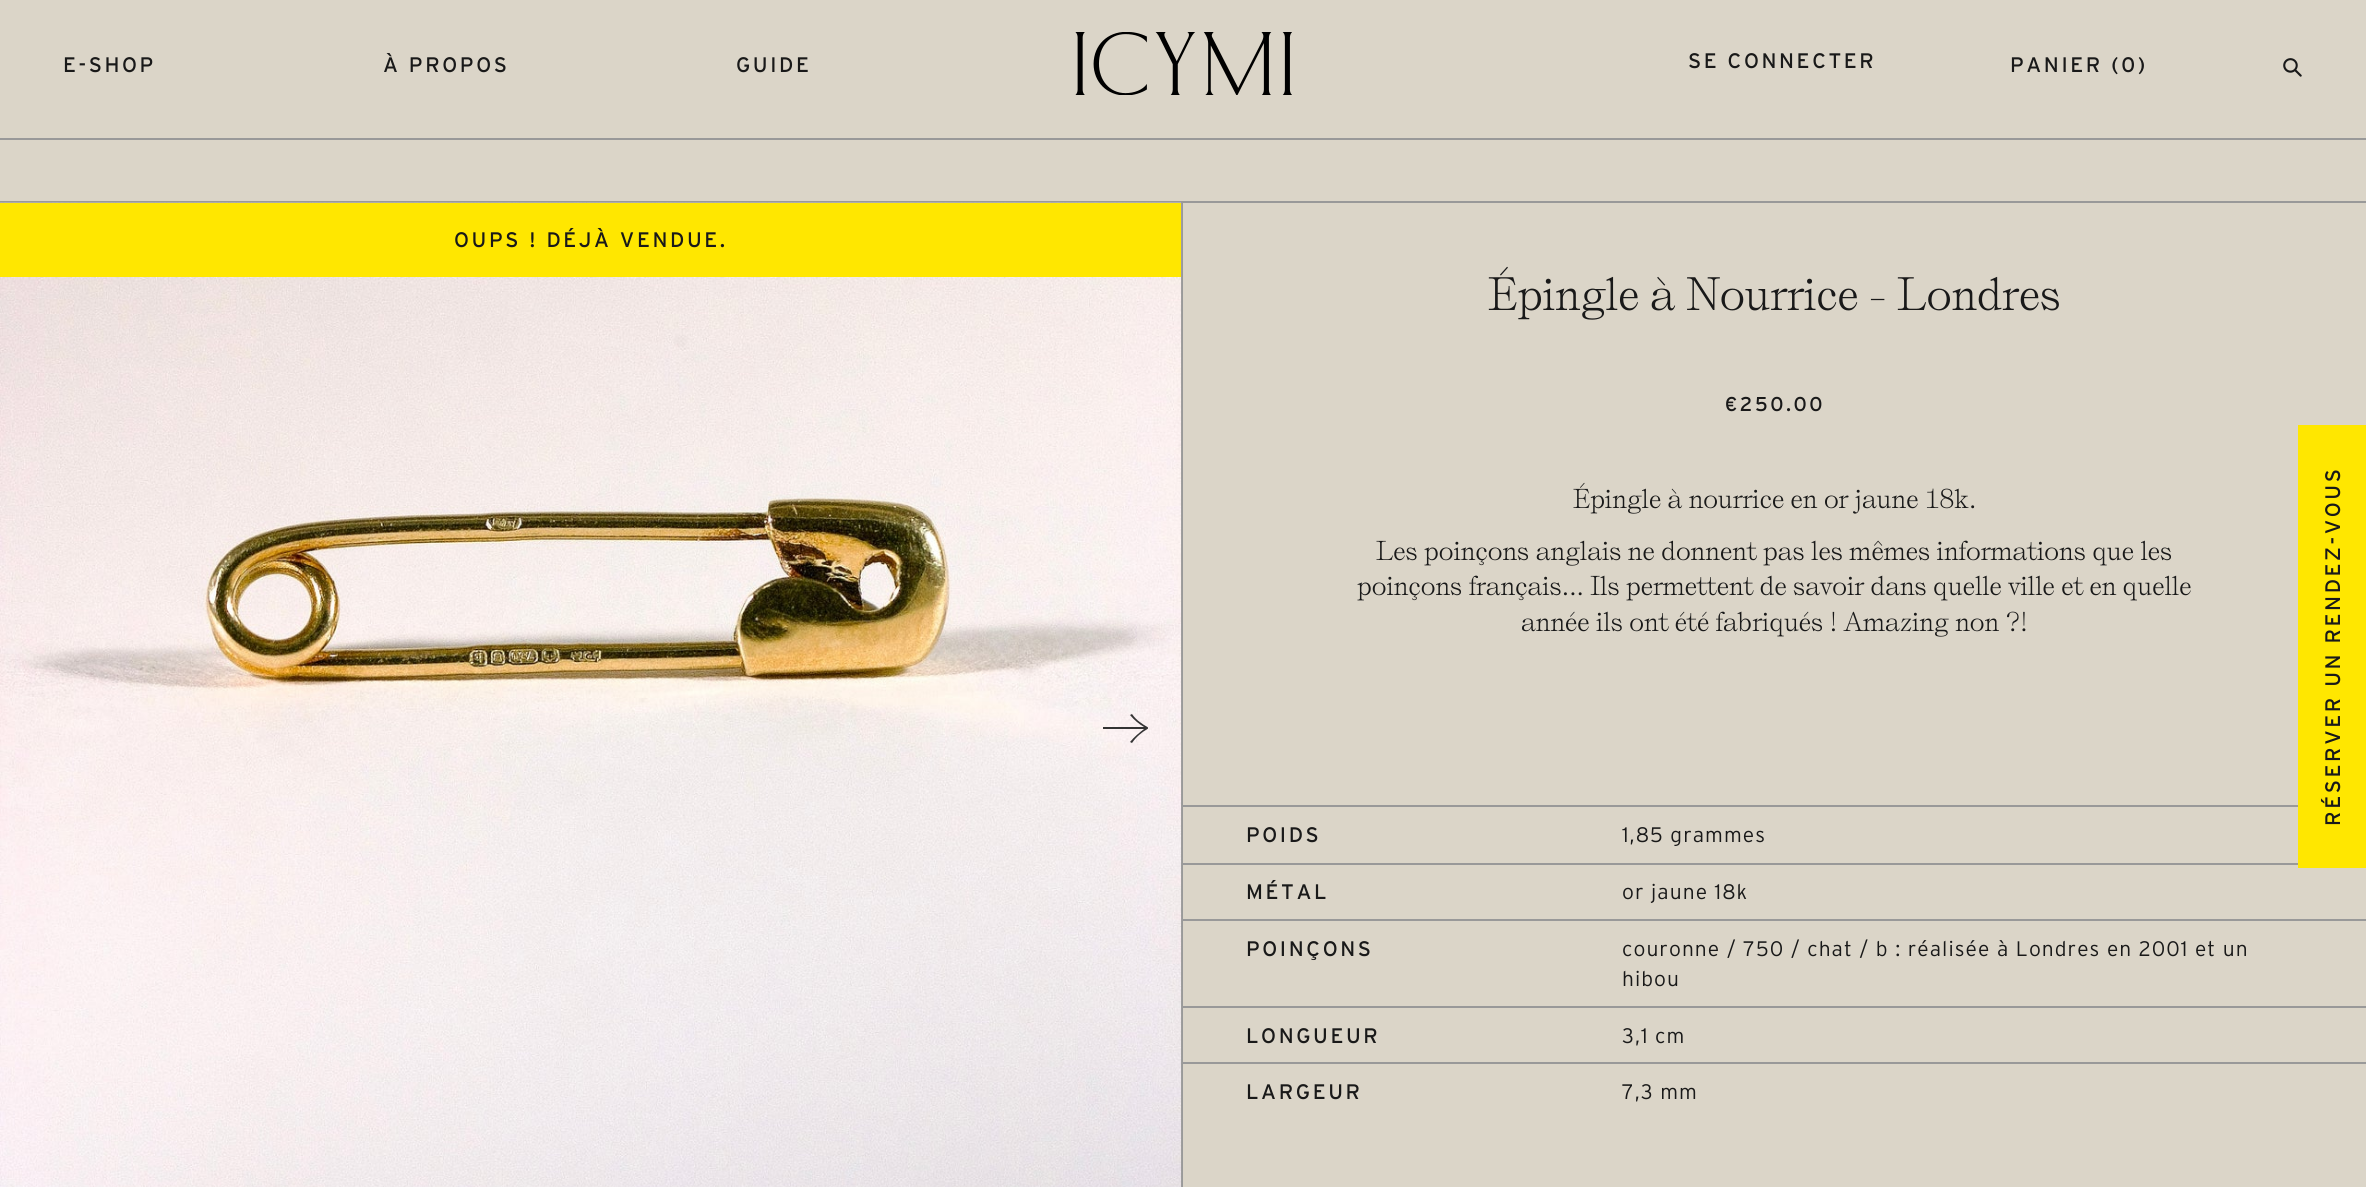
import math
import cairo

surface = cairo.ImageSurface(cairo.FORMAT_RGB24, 2366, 1187)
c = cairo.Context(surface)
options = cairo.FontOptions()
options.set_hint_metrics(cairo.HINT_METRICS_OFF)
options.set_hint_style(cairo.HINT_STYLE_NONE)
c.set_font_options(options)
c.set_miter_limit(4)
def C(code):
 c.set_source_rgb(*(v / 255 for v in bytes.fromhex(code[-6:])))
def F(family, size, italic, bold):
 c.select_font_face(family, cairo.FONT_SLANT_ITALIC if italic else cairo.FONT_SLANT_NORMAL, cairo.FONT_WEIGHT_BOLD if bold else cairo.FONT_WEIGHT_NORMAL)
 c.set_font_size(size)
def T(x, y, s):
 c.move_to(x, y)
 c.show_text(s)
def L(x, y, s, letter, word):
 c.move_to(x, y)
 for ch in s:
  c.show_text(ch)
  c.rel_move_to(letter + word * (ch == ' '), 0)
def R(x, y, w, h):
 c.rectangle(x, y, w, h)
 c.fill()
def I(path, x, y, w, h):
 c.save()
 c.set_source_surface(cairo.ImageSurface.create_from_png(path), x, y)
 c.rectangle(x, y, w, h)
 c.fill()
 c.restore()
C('dbd5c8')
c.paint()
C('999999')
R(0,138,2366,2)
I('1.png',1075,32,217,63)
F('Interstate',21,0,0)
C('191919')
L(63,72,'E-SHOP',2.6,0)
L(383,72,'À PROPOS',2.6,0)
L(736,72,'GUIDE',2.6,0)
L(1688,68,'SE CONNECTER',2.6,0)
L(2010,72,'PANIER (0)',2.6,0)
I('2.png',2283,58,19,19)
C('999999')
R(0,201,2366,2)
R(1181,203,2,984)
I('3.png',0,202,1182,985)
c.save()
c.rectangle(1103,705,45,46)
c.clip()
C('333333')
c.new_path()
c.move_to(1102,729)
c.line_to(1144,729)
c.curve_to(1139,733,1134,737,1130,742)
c.line_to(1132,743)
c.curve_to(1136,737,1142,732,1149,728)
c.curve_to(1142,724,1136,720,1132,714)
c.line_to(1130,715)
c.curve_to(1134,720,1139,724,1144,727)
c.line_to(1102,727)
c.close_path()
c.fill()
c.restore()
C('ffe700')
R(0,203,1181,74)
C('191919')
L(454,247,'OUPS ! DÉJÀ VENDUE.',2.6,0)
F('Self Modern',42,0,0)
T(1488,310,'Épingle à Nourrice - Londres')
F('Interstate',20,0,0)
L(1725,411,'€250.00',2.5,0)
F('Self Modern',24.5,0,0)
T(1573,508,'Épingle à nourrice en or jaune 18k.')
T(1376,560,'Les poinçons anglais ne donnent pas les mêmes informations que les')
T(1357,595,'poinçons français... Ils permettent de savoir dans quelle ville et en quelle')
T(1521,631,'année ils ont été fabriqués ! Amazing non ?!')
C('999999')
R(1183,805,1115,2)
F('Interstate',21,0,0)
C('191919')
L(1246,842,'POIDS',2.6,0)
F('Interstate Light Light',21,0,0)
L(1622,842,'1,85 grammes',1.05,0)
C('999999')
R(1183,863,1115,2)
F('Interstate',21,0,0)
C('191919')
L(1246,899,'MÉTAL',2.6,0)
F('Interstate Light Light',21,0,0)
L(1622,899,'or jaune 18k',1.05,0)
C('999999')
R(1183,919,1183,2)
F('Interstate',21,0,0)
C('191919')
L(1246,956,'POINÇONS',2.6,0)
F('Interstate Light Light',21,0,0)
L(1622,956,'couronne / 750 / chat / b : réalisée à Londres en 2001 et un',1.05,0)
L(1622,986,'hibou',1.05,0)
C('999999')
R(1183,1006,1183,2)
F('Interstate',21,0,0)
C('191919')
L(1246,1043,'LONGUEUR',2.6,0)
F('Interstate Light Light',21,0,0)
L(1622,1043,'3,1 cm',1.05,0)
C('999999')
R(1183,1062,1183,2)
F('Interstate',21,0,0)
C('191919')
L(1246,1099,'LARGEUR',2.6,0)
F('Interstate Light Light',21,0,0)
L(1622,1099,'7,3 mm',1.05,0)
C('ffe700')
R(2298,425,68,443)
F('Interstate',21,0,0)
C('191919')
c.save()
c.translate(2340,826)
c.rotate(-90 * math.pi / 180)
L(0,0,'RÉSERVER UN RENDEZ-VOUS',2.6,0)
c.restore()
surface.write_to_png('o.png')
